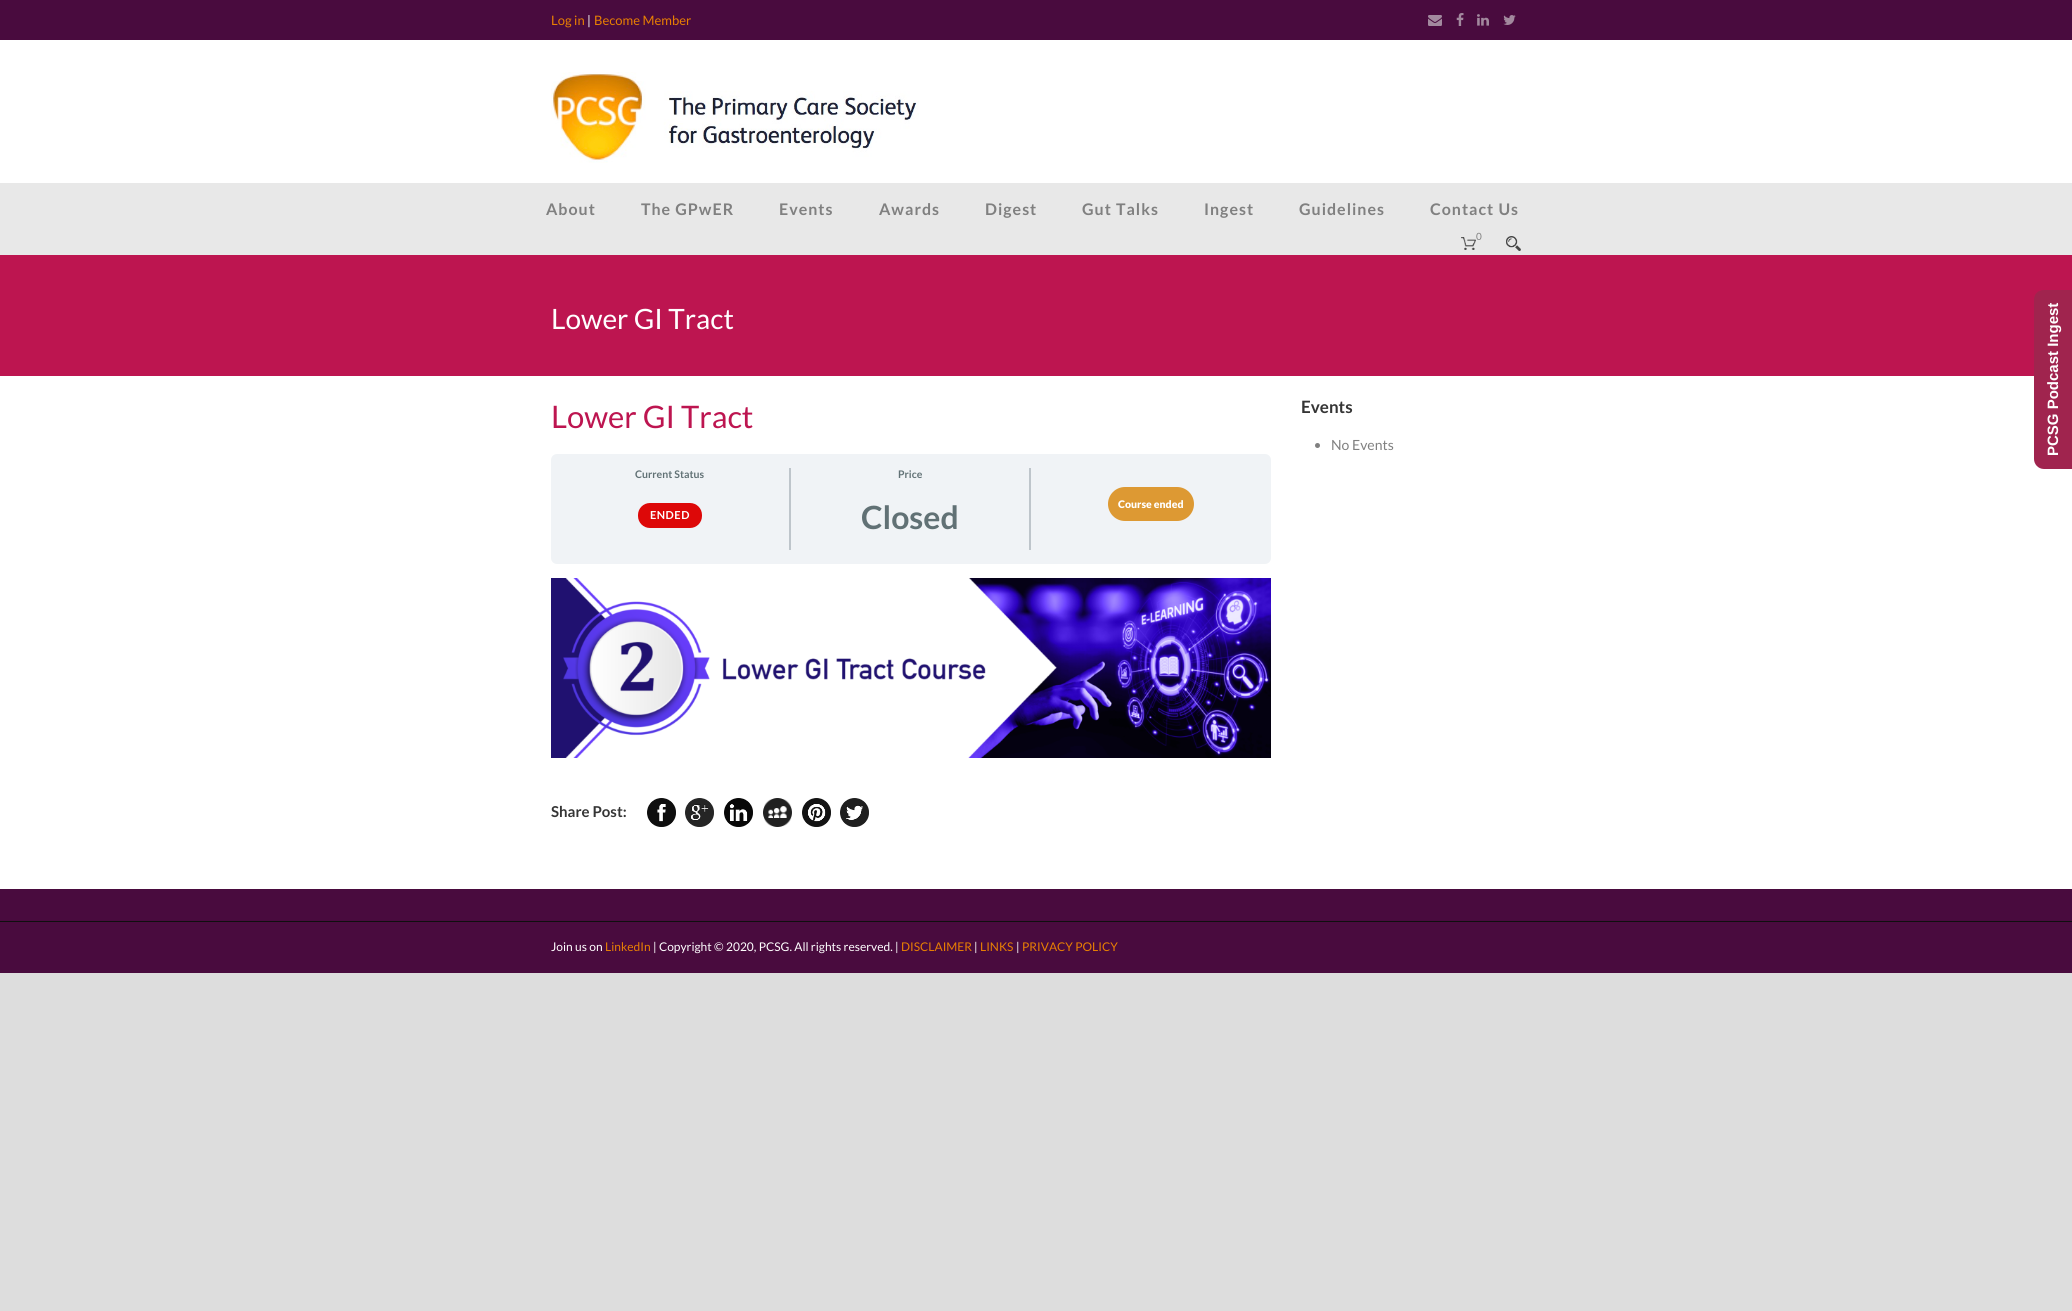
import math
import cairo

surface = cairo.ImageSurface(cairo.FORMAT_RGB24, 2072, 1311)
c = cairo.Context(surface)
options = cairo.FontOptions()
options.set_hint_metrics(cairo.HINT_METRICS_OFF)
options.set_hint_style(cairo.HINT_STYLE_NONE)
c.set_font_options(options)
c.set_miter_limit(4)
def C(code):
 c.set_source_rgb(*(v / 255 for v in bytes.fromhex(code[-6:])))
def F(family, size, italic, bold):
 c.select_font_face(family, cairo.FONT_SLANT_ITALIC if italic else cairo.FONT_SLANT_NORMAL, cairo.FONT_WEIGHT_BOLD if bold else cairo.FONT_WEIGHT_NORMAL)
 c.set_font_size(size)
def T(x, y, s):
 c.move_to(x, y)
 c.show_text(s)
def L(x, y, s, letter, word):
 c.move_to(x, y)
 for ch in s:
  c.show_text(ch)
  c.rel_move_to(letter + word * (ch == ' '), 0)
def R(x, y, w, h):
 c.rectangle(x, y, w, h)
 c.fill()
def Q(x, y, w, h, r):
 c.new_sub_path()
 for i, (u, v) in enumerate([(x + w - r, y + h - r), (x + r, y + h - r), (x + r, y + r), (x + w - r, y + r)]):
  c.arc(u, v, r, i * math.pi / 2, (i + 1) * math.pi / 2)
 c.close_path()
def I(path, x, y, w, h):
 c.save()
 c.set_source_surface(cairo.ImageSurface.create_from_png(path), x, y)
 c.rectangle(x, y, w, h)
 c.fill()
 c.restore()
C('dddddd')
c.paint()
C('ffffff')
R(0,40,2072,849)
C('490b3e')
R(0,0,2072,40)
F('Lato',13,0,0)
C('e87f02')
T(551,25,'Log in')
C('ffffff')
T(587,25,'|')
C('e87f02')
T(594,25,'Become Member')
I('1.png',1428,15,14,11)
I('2.png',1456,13,8,13)
I('3.png',1477,14,12,12)
I('4.png',1503,15,13,10)
I('5.png',551,72,368,91)
C('e8e8e8')
R(0,183,2072,72)
F('Lato',16,0,1)
C('808080')
L(546,215,'About',1,0)
L(641,215,'The GPwER',1,0)
L(779,215,'Events',1,0)
L(879,215,'Awards',1,0)
L(985,215,'Digest',1,0)
L(1082,215,'Gut Talks',1,0)
L(1204,215,'Ingest',1,0)
L(1299,215,'Guidelines',1,0)
L(1430,215,'Contact Us',1,0)
I('6.png',1461,237,15,13)
F('Lato',10,0,0)
T(1476,240,'0')
I('7.png',1506,236,15,15)
C('bd1550')
R(0,255,2072,121)
F('Lato',28,0,0)
C('ffffff')
T(551,329,'Lower GI Tract')
F('Lato',31,0,0)
C('bd1550')
T(551,428,'Lower GI Tract')
C('f0f3f6')
Q(551,454,720,110,6)
c.fill()
C('bec5cb')
R(789,468,2,82)
F('Lato',10.5,0,1)
C('617175')
T(635,478,'Current Status')
C('dd0808')
Q(638,503,64,25,12)
c.fill()
F('Lato',11,0,1)
C('ffffff')
L(650,519,'ENDED',.5,0)
C('bec5cb')
R(1029,468,2,82)
F('Lato',10.5,0,1)
C('617175')
T(898,478,'Price')
F('Lato',32,0,1)
T(861,529,'Closed')
C('dd9933')
Q(1108,487,86,34,17)
c.fill()
F('Lato Black',10.5,0,0)
C('ffffff')
T(1118,508,'Course ended')
I('8.png',551,578,720,180)
F('Lato',15,0,1)
C('353535')
T(551,817,'Share Post:')
I('9.png',647,798,29,29)
I('10.png',685,798,29,29)
I('11.png',724,798,29,29)
I('12.png',763,798,29,29)
I('13.png',802,798,29,29)
I('14.png',840,798,29,29)
F('Lato',17,0,1)
T(1301,413,'Events')
C('808080')
c.new_path()
c.arc(1317.5,445.5,2.5,0,2 * math.pi)
c.fill()
F('Lato',14,0,0)
T(1331,450,'No Events')
C('490b3e')
R(0,889,2072,84)
C('0f0f0f')
R(0,921,2072,1)
F('Lato',12,0,0)
C('ffffff')
T(551,951,'Join us on')
C('e87f02')
T(605,951,'LinkedIn')
C('ffffff')
T(653,951,'| Copyright © 2020, PCSG. All rights reserved. |')
C('e87f02')
T(901,951,'DISCLAIMER')
C('ffffff')
T(974,951,'|')
C('e87f02')
T(980,951,'LINKS')
C('ffffff')
T(1016,951,'|')
C('e87f02')
T(1022,951,'PRIVACY POLICY')
C('a0244e')
c.new_path()
c.move_to(2034,459)
c.line_to(2034,300)
c.curve_to(2034,294,2038,290,2044,290)
c.line_to(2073,290)
c.line_to(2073,469)
c.line_to(2044,469)
c.curve_to(2038,469,2034,464,2034,459)
c.close_path()
c.fill()
F('Liberation Sans',15,0,1)
C('ffffff')
c.save()
c.translate(2058,456)
c.rotate(-90 * math.pi / 180)
T(0,0,'PCSG Podcast Ingest')
c.restore()
surface.write_to_png('o.png')
